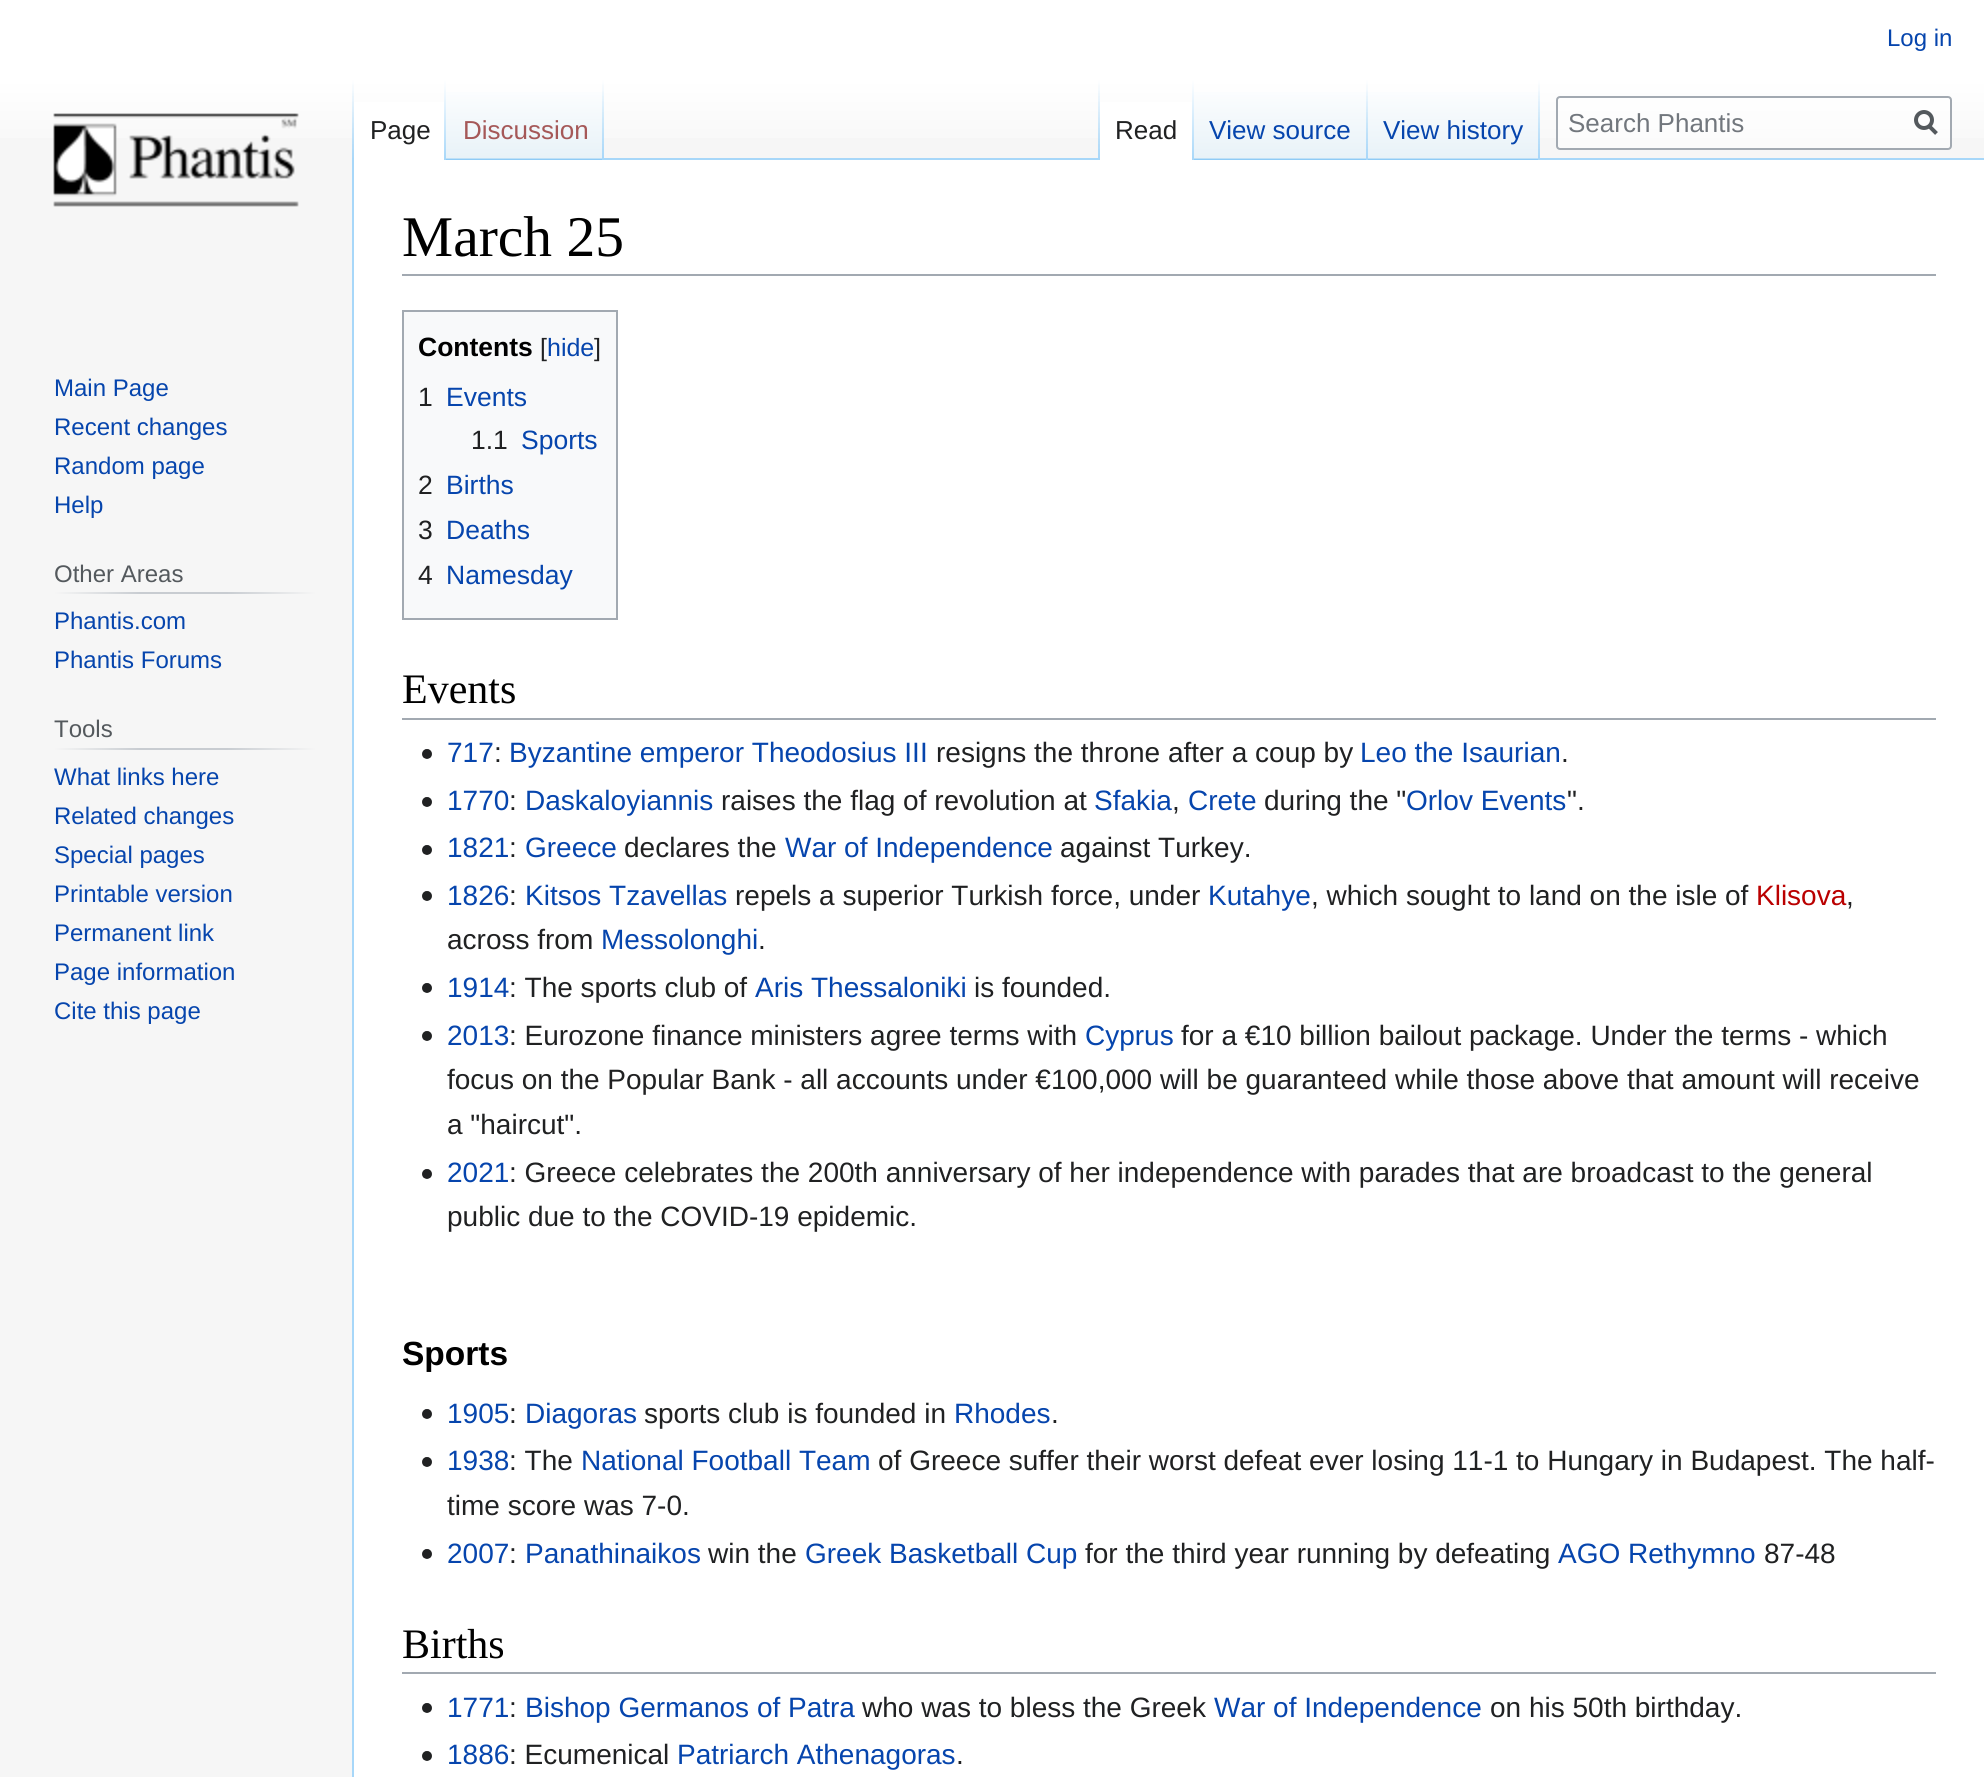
import math
import cairo

surface = cairo.ImageSurface(cairo.FORMAT_RGB24, 1984, 1777)
c = cairo.Context(surface)
options = cairo.FontOptions()
options.set_hint_metrics(cairo.HINT_METRICS_OFF)
options.set_hint_style(cairo.HINT_STYLE_NONE)
c.set_font_options(options)
c.set_miter_limit(4)
def C(code):
 c.set_source_rgb(*(v / 255 for v in bytes.fromhex(code[-6:])))
def F(family, size, italic, bold):
 c.select_font_face(family, cairo.FONT_SLANT_ITALIC if italic else cairo.FONT_SLANT_NORMAL, cairo.FONT_WEIGHT_BOLD if bold else cairo.FONT_WEIGHT_NORMAL)
 c.set_font_size(size)
def T(x, y, s):
 c.move_to(x, y)
 c.show_text(s)
def R(x, y, w, h):
 c.rectangle(x, y, w, h)
 c.fill()
def Q(x, y, w, h, r):
 c.new_sub_path()
 for i, (u, v) in enumerate([(x + w - r, y + h - r), (x + r, y + h - r), (x + r, y + r), (x + w - r, y + r)]):
  c.arc(u, v, r, i * math.pi / 2, (i + 1) * math.pi / 2)
 c.close_path()
def I(path, x, y, w, h):
 c.save()
 c.set_source_surface(cairo.ImageSurface.create_from_png(path), x, y)
 c.rectangle(x, y, w, h)
 c.fill()
 c.restore()
C('f6f6f6')
c.paint()
gradient = cairo.LinearGradient(992,0,992,160)
gradient.add_color_stop_rgba(.5,1,1,1,1)
gradient.add_color_stop_rgba(1,0.965,0.965,0.965,1)
c.set_source(gradient)
R(0,0,1984,138)
F('Liberation Sans',24,0,0)
C('0645ad')
T(1887,46,'Log in')
C('a7d7f9')
R(352,158,2,1619)
gradient = cairo.LinearGradient(353,80,353,160)
gradient.add_color_stop_rgba(0,0.655,0.843,0.976,0)
gradient.add_color_stop_rgba(1,0.655,0.843,0.976,1)
c.set_source(gradient)
R(352,80,2,80)
C('ffffff')
R(354,102,90,58)
gradient = cairo.LinearGradient(445,80,445,160)
gradient.add_color_stop_rgba(0,1,1,1,1)
gradient.add_color_stop_rgba(1,0.655,0.843,0.976,1)
c.set_source(gradient)
R(444,80,2,80)
F('Liberation Sans',26,0,0)
C('202122')
T(370,139,'Page')
gradient = cairo.LinearGradient(525,160,525,80)
gradient.add_color_stop_rgba(0,0.467,0.757,0.965,1)
gradient.add_color_stop_rgba(.03,0.91,0.949,0.973,1)
gradient.add_color_stop_rgba(1,1,1,1,1)
c.set_source(gradient)
R(446,92,158,68)
gradient = cairo.LinearGradient(603,80,603,160)
gradient.add_color_stop_rgba(0,0.655,0.843,0.976,0)
gradient.add_color_stop_rgba(1,0.655,0.843,0.976,1)
c.set_source(gradient)
R(602,80,2,80)
C('a55858')
T(463,139,'Discussion')
C('a7d7f9')
R(604,158,1380,2)
gradient = cairo.LinearGradient(1099,80,1099,160)
gradient.add_color_stop_rgba(0,0.655,0.843,0.976,0)
gradient.add_color_stop_rgba(1,0.655,0.843,0.976,1)
c.set_source(gradient)
R(1098,80,2,80)
C('ffffff')
R(1100,102,92,58)
gradient = cairo.LinearGradient(1193,80,1193,160)
gradient.add_color_stop_rgba(0,1,1,1,1)
gradient.add_color_stop_rgba(1,0.655,0.843,0.976,1)
c.set_source(gradient)
R(1192,80,2,80)
C('202122')
T(1115,139,'Read')
gradient = cairo.LinearGradient(1281,160,1281,80)
gradient.add_color_stop_rgba(0,0.467,0.757,0.965,1)
gradient.add_color_stop_rgba(.03,0.91,0.949,0.973,1)
gradient.add_color_stop_rgba(1,1,1,1,1)
c.set_source(gradient)
R(1194,92,174,68)
gradient = cairo.LinearGradient(1367,80,1367,160)
gradient.add_color_stop_rgba(0,0.655,0.843,0.976,0)
gradient.add_color_stop_rgba(1,0.655,0.843,0.976,1)
c.set_source(gradient)
R(1366,80,2,80)
C('0645ad')
T(1209,139,'View source')
gradient = cairo.LinearGradient(1454,160,1454,80)
gradient.add_color_stop_rgba(0,0.467,0.757,0.965,1)
gradient.add_color_stop_rgba(.03,0.91,0.949,0.973,1)
gradient.add_color_stop_rgba(1,1,1,1,1)
c.set_source(gradient)
R(1368,92,172,68)
gradient = cairo.LinearGradient(1539,80,1539,160)
gradient.add_color_stop_rgba(0,0.655,0.843,0.976,0)
gradient.add_color_stop_rgba(1,0.655,0.843,0.976,1)
c.set_source(gradient)
R(1538,80,2,80)
C('0645ad')
T(1383,139,'View history')
c.set_source_rgba(1,1,1,0.5)
Q(1557,97,394,52,3)
c.fill_preserve()
C('a2a9b1')
c.stroke()
C('72777d')
T(1568,132,'Search Phantis')
c.new_path()
c.move_to(1936.5,133.5)
c.line_to(1928.5,125.5)
C('54595d')
c.set_line_width(4)
c.stroke()
c.arc(1924,120,8,0,2 * math.pi)
c.stroke()
I('1.png',53,113,246,94)
F('Liberation Sans',24,0,0)
C('0645ad')
T(54,396,'Main Page')
T(54,435,'Recent changes')
T(54,474,'Random page')
T(54,513,'Help')
gradient = cairo.LinearGradient(54,593,316,593)
gradient.add_color_stop_rgba(0,0.965,0.965,0.965,1)
gradient.add_color_stop_rgba(.33,0.784,0.8,0.82,1)
gradient.add_color_stop_rgba(.66,0.784,0.8,0.82,1)
gradient.add_color_stop_rgba(1,0.965,0.965,0.965,1)
c.set_source(gradient)
R(54,592,262,2)
C('54595d')
T(54,582,'Other Areas')
C('0645ad')
T(54,629,'Phantis.com')
T(54,668,'Phantis Forums')
gradient = cairo.LinearGradient(54,749,316,749)
gradient.add_color_stop_rgba(0,0.965,0.965,0.965,1)
gradient.add_color_stop_rgba(.33,0.784,0.8,0.82,1)
gradient.add_color_stop_rgba(.66,0.784,0.8,0.82,1)
gradient.add_color_stop_rgba(1,0.965,0.965,0.965,1)
c.set_source(gradient)
R(54,748,262,2)
C('54595d')
T(54,737,'Tools')
C('0645ad')
T(54,785,'What links here')
T(54,824,'Related changes')
T(54,863,'Special pages')
T(54,902,'Printable version')
T(54,941,'Permanent link')
T(54,980,'Page information')
T(54,1019,'Cite this page')
C('ffffff')
R(354,160,1630,1617)
C('a2a9b1')
R(402,274,1534,2)
F('Liberation Serif',57.5,0,0)
C('000000')
T(402,256,'March 25')
C('f8f9fa')
c.rectangle(403,311,214,308)
c.fill_preserve()
C('a2a9b1')
c.set_line_width(2)
c.stroke()
F('Liberation Sans',26.5,0,1)
C('000000')
T(418,356,'Contents')
F('Liberation Sans',25,0,0)
C('202122')
T(540,356,'[')
C('0645ad')
T(547,356,'hide')
C('202122')
T(594,356,']')
F('Liberation Sans',26.5,0,0)
T(418,406,'1')
C('0645ad')
T(446,406,'Events')
C('202122')
T(471,449,'1.1')
C('0645ad')
T(521,449,'Sports')
C('202122')
T(418,494,'2')
C('0645ad')
T(446,494,'Births')
C('202122')
T(418,539,'3')
C('0645ad')
T(446,539,'Deaths')
C('202122')
T(418,584,'4')
C('0645ad')
T(446,584,'Namesday')
C('a2a9b1')
R(402,718,1534,2)
F('Liberation Serif',42,0,0)
C('000000')
T(402,703,'Events')
I('2.png',422,749,10,10)
F('Liberation Sans',28,0,0)
C('0645ad')
T(447,762,'717')
C('202122')
T(494,762,':')
C('0645ad')
T(509,762,'Byzantine emperor Theodosius III')
C('202122')
T(936,762,'resigns the throne after a coup by')
C('0645ad')
T(1360,762,'Leo the Isaurian')
C('202122')
T(1561,762,'.')
I('2.png',422,797,10,10)
C('0645ad')
T(447,810,'1770')
C('202122')
T(509,810,':')
C('0645ad')
T(525,810,'Daskaloyiannis')
C('202122')
T(721,810,'raises the flag of revolution at')
C('0645ad')
T(1094,810,'Sfakia')
C('202122')
T(1172,810,',')
C('0645ad')
T(1188,810,'Crete')
C('202122')
T(1264,810,'during the "')
C('0645ad')
T(1406,810,'Orlov Events')
C('202122')
T(1567,810,'".')
I('2.png',422,845,10,10)
C('0645ad')
T(447,857,'1821')
C('202122')
T(509,857,':')
C('0645ad')
T(525,857,'Greece')
C('202122')
T(624,857,'declares the')
C('0645ad')
T(785,857,'War of Independence')
C('202122')
T(1060,857,'against Turkey.')
I('2.png',422,891,10,10)
C('0645ad')
T(447,905,'1826')
C('202122')
T(509,905,':')
C('0645ad')
T(525,905,'Kitsos Tzavellas')
C('202122')
T(735,905,'repels a superior Turkish force, under')
C('0645ad')
T(1208,905,'Kutahye')
C('202122')
T(1311,905,', which sought to land on the isle of')
C('ba0000')
T(1756,905,'Klisova')
C('202122')
T(1846,905,',')
T(447,949,'across from')
C('0645ad')
T(601,949,'Messolonghi')
C('202122')
T(758,949,'.')
I('2.png',422,983,10,10)
C('0645ad')
T(447,997,'1914')
C('202122')
T(509,997,': The sports club of')
C('0645ad')
T(755,997,'Aris Thessaloniki')
C('202122')
T(974,997,'is founded.')
I('2.png',422,1031,10,10)
C('0645ad')
T(447,1045,'2013')
C('202122')
T(509,1045,': Eurozone finance ministers agree terms with')
C('0645ad')
T(1085,1045,'Cyprus')
C('202122')
T(1181,1045,'for a €10 billion bailout package. Under the terms - which')
T(447,1089,'focus on the Popular Bank - all accounts under €100,000 will be guaranteed while those above that amount will receive')
T(447,1134,'a "haircut".')
I('2.png',422,1169,10,10)
C('0645ad')
T(447,1182,'2021')
C('202122')
T(509,1182,': Greece celebrates the 200th anniversary of her independence with parades that are broadcast to the general')
T(447,1226,'public due to the COVID-19 epidemic.')
F('Liberation Sans',33.5,0,1)
C('000000')
T(402,1365,'Sports')
I('2.png',422,1409,10,10)
F('Liberation Sans',28,0,0)
C('0645ad')
T(447,1423,'1905')
C('202122')
T(509,1423,':')
C('0645ad')
T(525,1423,'Diagoras')
C('202122')
T(644,1423,'sports club is founded in')
C('0645ad')
T(954,1423,'Rhodes')
C('202122')
T(1051,1423,'.')
I('2.png',422,1457,10,10)
C('0645ad')
T(447,1470,'1938')
C('202122')
T(509,1470,': The')
C('0645ad')
T(581,1470,'National Football Team')
C('202122')
T(878,1470,'of Greece suffer their worst defeat ever losing 11-1 to Hungary in Budapest. The half-')
T(447,1515,'time score was 7-0.')
I('2.png',422,1549,10,10)
C('0645ad')
T(447,1563,'2007')
C('202122')
T(509,1563,':')
C('0645ad')
T(525,1563,'Panathinaikos')
C('202122')
T(708,1563,'win the')
C('0645ad')
T(805,1563,'Greek Basketball Cup')
C('202122')
T(1085,1563,'for the third year running by defeating')
C('0645ad')
T(1558,1563,'AGO Rethymno')
C('202122')
T(1764,1563,'87-48')
C('a2a9b1')
R(402,1672,1534,2)
F('Liberation Serif',42,0,0)
C('000000')
T(402,1658,'Births')
I('2.png',422,1703,10,10)
F('Liberation Sans',28,0,0)
C('0645ad')
T(447,1717,'1771')
C('202122')
T(509,1717,':')
C('0645ad')
T(525,1717,'Bishop Germanos of Patra')
C('202122')
T(862,1717,'who was to bless the Greek')
C('0645ad')
T(1214,1717,'War of Independence')
C('202122')
T(1490,1717,'on his 50th birthday.')
I('2.png',422,1751,10,10)
C('0645ad')
T(447,1764,'1886')
C('202122')
T(509,1764,': Ecumenical')
C('0645ad')
T(677,1764,'Patriarch Athenagoras')
C('202122')
T(956,1764,'.')
surface.write_to_png('o.png')
